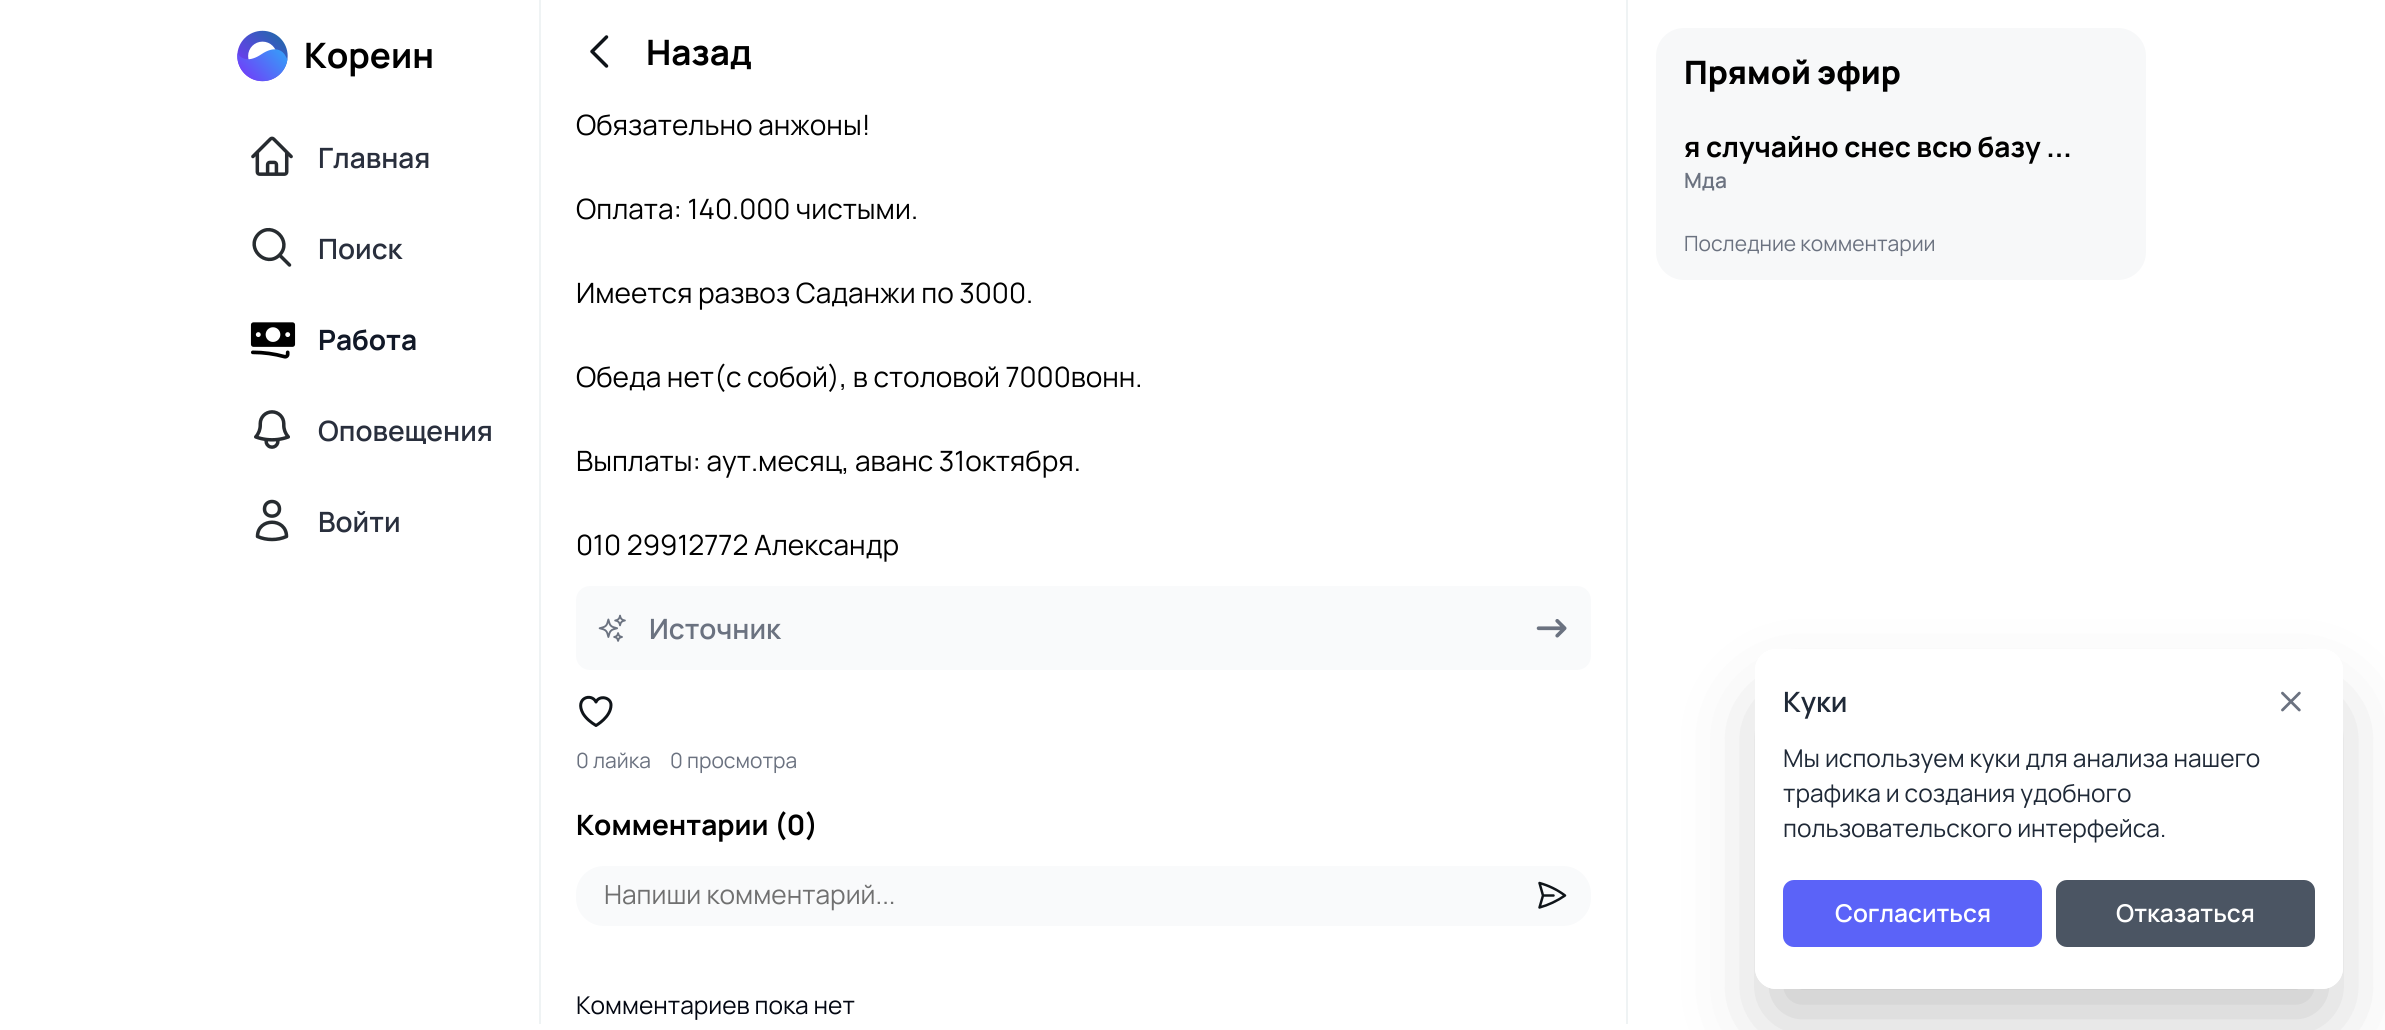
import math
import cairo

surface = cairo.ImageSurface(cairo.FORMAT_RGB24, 2385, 1030)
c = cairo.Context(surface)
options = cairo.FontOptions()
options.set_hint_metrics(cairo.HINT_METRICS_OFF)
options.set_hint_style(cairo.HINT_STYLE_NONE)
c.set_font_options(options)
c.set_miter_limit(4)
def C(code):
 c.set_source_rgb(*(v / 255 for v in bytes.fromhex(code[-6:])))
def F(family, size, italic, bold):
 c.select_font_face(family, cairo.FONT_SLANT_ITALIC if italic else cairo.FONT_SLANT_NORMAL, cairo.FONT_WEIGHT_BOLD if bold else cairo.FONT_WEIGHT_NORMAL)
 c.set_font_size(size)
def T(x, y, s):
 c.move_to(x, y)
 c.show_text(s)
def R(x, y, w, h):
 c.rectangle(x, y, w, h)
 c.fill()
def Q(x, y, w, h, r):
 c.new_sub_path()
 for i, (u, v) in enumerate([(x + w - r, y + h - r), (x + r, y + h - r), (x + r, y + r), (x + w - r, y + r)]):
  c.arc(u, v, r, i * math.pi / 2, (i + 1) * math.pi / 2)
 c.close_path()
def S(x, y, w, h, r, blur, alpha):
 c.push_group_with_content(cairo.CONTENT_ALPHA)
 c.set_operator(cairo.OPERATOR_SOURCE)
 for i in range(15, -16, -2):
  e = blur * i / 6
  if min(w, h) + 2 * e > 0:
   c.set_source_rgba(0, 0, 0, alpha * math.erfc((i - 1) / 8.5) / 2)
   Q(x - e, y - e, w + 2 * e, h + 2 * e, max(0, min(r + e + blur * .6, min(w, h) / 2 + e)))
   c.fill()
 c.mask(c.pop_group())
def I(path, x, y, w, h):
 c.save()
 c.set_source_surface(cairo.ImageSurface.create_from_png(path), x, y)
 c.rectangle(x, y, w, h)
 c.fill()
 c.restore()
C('ffffff')
c.paint()
I('1.png',237,30,51,52)
F('Manrope',35,0,1)
C('000000')
T(304,68,'Кореин')
I('2.png',251,136,42,40)
F('Manrope SemiBold',28,0,0)
C('292f3d')
T(318,168,'Главная')
c.new_path()
c.move_to(289.5,265)
c.line_to(279.5,255)
c.move_to(279.5,255)
c.curve_to(293,241.5,272.5,220.5,258.5,234)
c.curve_to(245,248,266,268.5,279.5,255)
c.close_path()
C('272c30')
c.set_line_width(3.5)
c.set_line_cap(cairo.LINE_CAP_ROUND)
c.set_line_join(cairo.LINE_JOIN_ROUND)
c.stroke()
C('292f3d')
T(318,259,'Поиск')
I('3.png',250,322,46,37)
F('Manrope',28,0,1)
C('111827')
T(318,350,'Работа')
I('4.png',254,410,36,39)
F('Manrope SemiBold',28,0,0)
C('292f3d')
T(318,441,'Оповещения')
c.new_path()
c.move_to(279.5,509)
c.curve_to(279.5,518.5,264.5,518.5,264.5,509)
c.curve_to(264.5,499,279.5,499,279.5,509)
c.close_path()
c.move_to(257.5,536.5)
c.curve_to(257.5,517.5,286.5,517.5,286.5,536.5)
c.curve_to(277.5,540.5,266.5,540.5,257.5,536.5)
c.close_path()
C('272c30')
c.stroke()
C('292f3d')
T(318,532,'Войти')
C('eff3f4')
R(1626,0,2,1024)
R(539,0,2,1024)
c.new_path()
c.move_to(606.5,66)
c.line_to(592,51.5)
c.line_to(606.5,37)
C('0f1419')
c.stroke()
F('Manrope',35,0,1)
C('000000')
T(646,65,'Назад')
F('Manrope',28,0,0)
T(576,135,'Обязательно анжоны!')
T(576,219,'Оплата: 140.000 чистыми.')
T(576,303,'Имеется развоз Саданжи по 3000.')
T(576,387,'Обеда нет(с собой), в столовой 7000вонн.')
T(576,471,'Выплаты: аут.месяц, аванс 31октября.')
T(576,555,'010 29912772 Александр')
C('f9fafb')
Q(576,586,1015,84,14)
c.fill()
I('5.png',598,614,28,28)
F('Manrope SemiBold',28,0,0)
C('6b7280')
T(649,639,'Источник')
I('6.png',1536,619,31,19)
c.new_path()
c.move_to(611,705)
c.curve_to(611,697,599,695,596,702)
c.curve_to(591.5,692.5,574.5,698,583,713.5)
c.curve_to(586,718.5,591,722.5,596,725.5)
c.curve_to(596,725.5,611,717,611,705)
c.close_path()
C('0f1419')
c.set_line_width(3)
c.stroke()
F('Manrope',21,0,0)
C('6b7280')
T(576,768,'0 лайка')
T(670,768,'0 просмотра')
F('Manrope',28,0,1)
C('000000')
T(576,835,'Комментарии (0)')
C('f9fafb')
Q(576,866,1015,60,28)
c.fill()
F('Manrope',26.25,0,0)
C('707070')
T(604,904,'Напиши комментарий...')
c.new_path()
c.move_to(1543,895.5)
c.line_to(1539.5,883)
c.curve_to(1548.5,885.5,1557,889.5,1565,895.5)
c.curve_to(1557,901,1548.5,905,1539.5,907.5)
c.close_path()
c.move_to(1543,895.5)
c.line_to(1553.5,895.5)
C('0f1419')
c.set_line_width(2.5)
c.stroke()
F('Manrope',24.5,0,0)
C('030712')
T(576,1014,'Комментариев пока нет')
C('f7f8f9')
Q(1656,28,490,252,28)
c.fill()
F('Manrope ExtraBold',32.25,0,0)
C('000000')
T(1684,84,'Прямой эфир')
F('Manrope',28,0,1)
T(1684,157,'я случайно снес всю базу ...')
F('Manrope SemiBold',21,0,0)
C('6b7280')
T(1684,188,'Мда')
F('Manrope',21,0,0)
T(1684,251,'Последние комментарии')
c.save()
c.set_fill_rule(cairo.FILL_RULE_EVEN_ODD)
c.new_path()
c.move_to(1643,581)
c.line_to(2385,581)
c.line_to(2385,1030)
c.line_to(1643,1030)
c.close_path()
c.move_to(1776,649)
c.line_to(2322,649)
c.curve_to(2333.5,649,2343,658.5,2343,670)
c.line_to(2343,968)
c.curve_to(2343,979.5,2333.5,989,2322,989)
c.line_to(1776,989)
c.curve_to(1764.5,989,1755,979.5,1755,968)
c.line_to(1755,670)
c.curve_to(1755,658.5,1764.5,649,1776,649)
c.close_path()
c.clip()
C('000000')
S(1776,714,546,298,0,44,.25)
c.restore()
c.set_source_rgba(1,1,1,0.6)
Q(1755,649,588,340,21)
c.fill()
F('Manrope SemiBold',28,0,0)
C('1f2937')
T(1783,712,'Куки')
I('7.png',2281,691,20,21)
F('Manrope',24.5,0,0)
T(1783,767,'Мы используем куки для анализа нашего')
T(1783,802,'трафика и создания удобного')
T(1783,837,'пользовательского интерфейса.')
C('5b63f8')
Q(1783,880,259,67,11)
c.fill()
F('Manrope SemiBold',24.5,0,0)
C('ffffff')
T(1835,922,'Согласиться')
C('4b5563')
Q(2056,880,259,67,11)
c.fill()
C('ffffff')
T(2116,922,'Отказаться')
surface.write_to_png('o.png')
